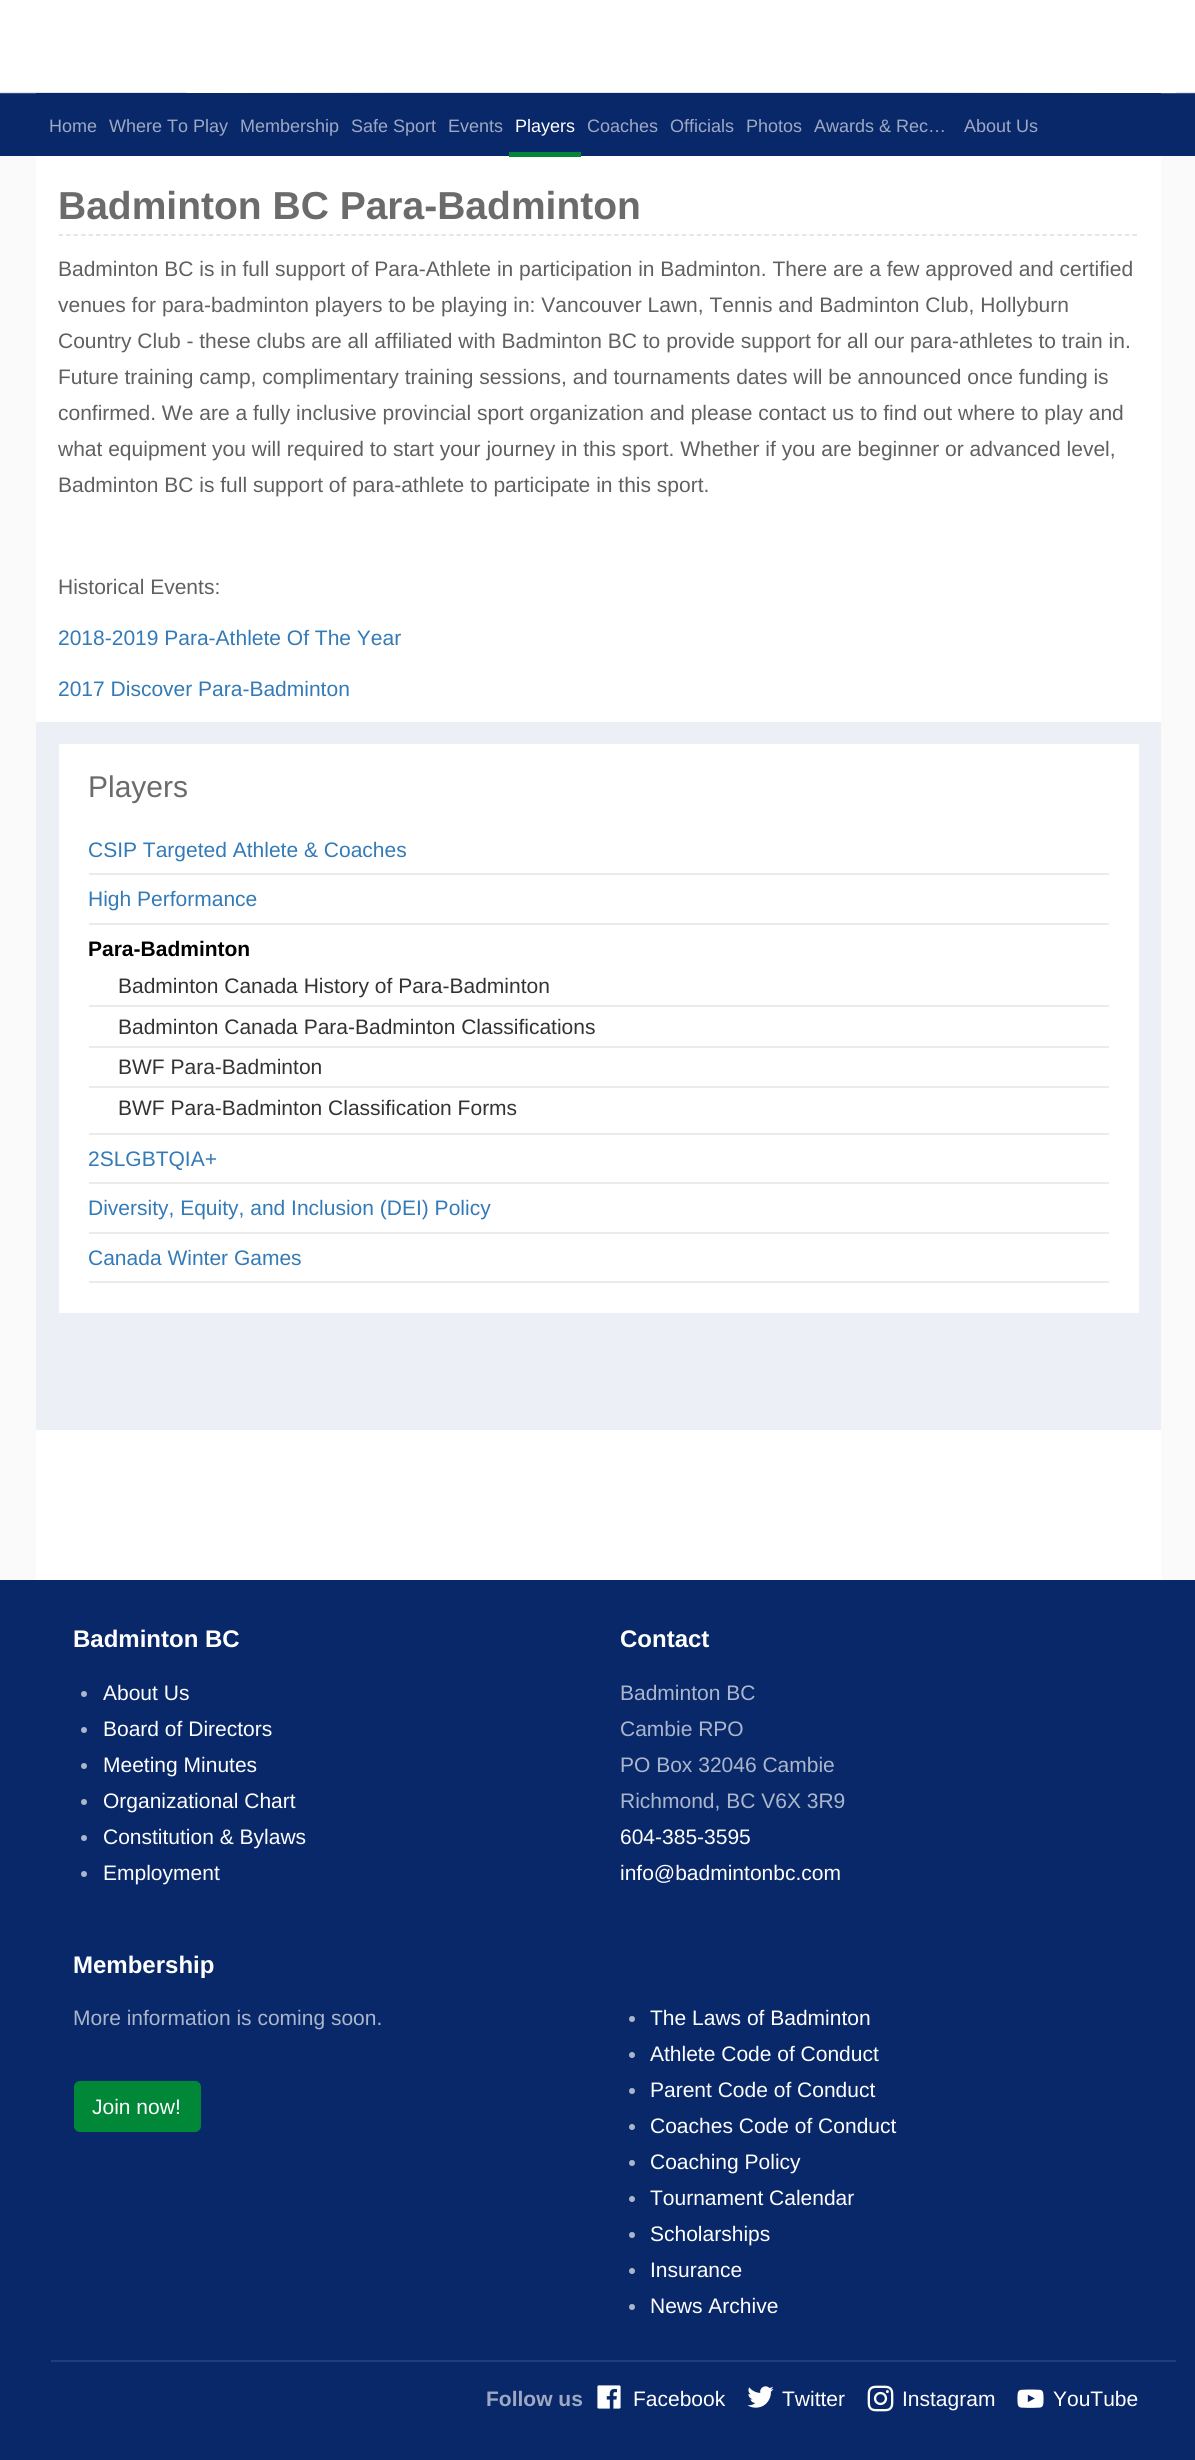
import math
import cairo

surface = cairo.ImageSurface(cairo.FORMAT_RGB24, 1195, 2460)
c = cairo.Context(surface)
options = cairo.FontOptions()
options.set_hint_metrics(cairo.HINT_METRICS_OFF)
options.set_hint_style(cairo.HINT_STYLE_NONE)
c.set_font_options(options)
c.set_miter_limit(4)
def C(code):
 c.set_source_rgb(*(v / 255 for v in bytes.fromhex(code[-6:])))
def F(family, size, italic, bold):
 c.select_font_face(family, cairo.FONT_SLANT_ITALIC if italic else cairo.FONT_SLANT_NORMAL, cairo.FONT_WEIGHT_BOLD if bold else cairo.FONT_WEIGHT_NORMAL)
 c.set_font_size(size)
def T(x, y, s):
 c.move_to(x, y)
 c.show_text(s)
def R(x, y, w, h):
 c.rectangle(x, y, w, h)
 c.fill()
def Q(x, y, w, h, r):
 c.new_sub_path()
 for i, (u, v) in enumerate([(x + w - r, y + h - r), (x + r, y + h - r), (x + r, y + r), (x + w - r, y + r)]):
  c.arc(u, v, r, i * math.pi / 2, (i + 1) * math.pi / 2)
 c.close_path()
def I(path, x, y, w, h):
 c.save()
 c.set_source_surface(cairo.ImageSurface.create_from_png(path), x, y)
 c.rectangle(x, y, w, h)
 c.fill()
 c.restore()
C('fafafa')
c.paint()
I('1.png',0,0,1195,156)
C('092869')
R(36,93,1125,1)
F('Liberation Sans',18,0,0)
C('9da9c3')
T(49,132,'Home')
T(109,132,'Where To Play')
T(240,132,'Membership')
T(351,132,'Safe Sport')
T(448,132,'Events')
C('ffffff')
R(36,156,1125,1424)
C('008738')
R(509,152,72,5)
C('ffffff')
T(515,132,'Players')
C('9da9c3')
T(587,132,'Coaches')
T(670,132,'Officials')
T(746,132,'Photos')
T(814,132,'Awards & Rec…')
T(964,132,'About Us')
c.new_path()
c.move_to(58.5,235)
c.line_to(1138.5,235)
C('dedede')
c.set_line_width(1.5)
c.set_dash([4.5,3.01])
c.stroke()
F('Liberation Sans',39,0,1)
C('6b6b6b')
T(58,219,'Badminton BC Para-Badminton')
F('Liberation Sans',21,0,0)
C('606060')
T(58,276,'Badminton BC is in full support of Para-Athlete in participation in Badminton. There are a few approved and certified')
T(58,312,'venues for para-badminton players to be playing in: Vancouver Lawn, Tennis and Badminton Club, Hollyburn')
T(58,348,'Country Club - these clubs are all affiliated with Badminton BC to provide support for all our para-athletes to train in.')
T(58,384,'Future training camp, complimentary training sessions, and tournaments dates will be announced once funding is')
T(58,420,'confirmed. We are a fully inclusive provincial sport organization and please contact us to find out where to play and')
T(58,456,'what equipment you will required to start your journey in this sport. Whether if you are beginner or advanced level,')
T(58,492,'Badminton BC is full support of para-athlete to participate in this sport.')
T(58,594,'Historical Events:')
C('337ab7')
T(58,645,'2018-2019 Para-Athlete Of The Year')
T(58,696,'2017 Discover Para-Badminton')
C('edeff7')
R(36,722,1125,708)
C('ffffff')
R(59,744,1080,569)
F('Liberation Sans',30,0,0)
C('6b6b6b')
T(88,797,'Players')
C('ebebeb')
R(89,873,1020,2)
F('Liberation Sans',21,0,0)
C('337ab7')
T(88,857,'CSIP Targeted Athlete & Coaches')
C('ebebeb')
R(89,923,1020,2)
C('337ab7')
T(88,906,'High Performance')
C('ebebeb')
R(89,1133,1020,2)
F('Liberation Sans',21,0,1)
C('000000')
T(88,956,'Para-Badminton')
C('ebebeb')
R(89,1005,1020,2)
F('Liberation Sans',21,0,0)
C('333333')
T(118,993,'Badminton Canada History of Para-Badminton')
C('ebebeb')
R(89,1046,1020,2)
C('333333')
T(118,1034,'Badminton Canada Para-Badminton Classifications')
C('ebebeb')
R(89,1086,1020,2)
C('333333')
T(118,1074,'BWF Para-Badminton')
T(118,1115,'BWF Para-Badminton Classification Forms')
C('ebebeb')
R(89,1182,1020,2)
C('337ab7')
T(88,1166,'2SLGBTQIA+')
C('ebebeb')
R(89,1232,1020,2)
C('337ab7')
T(88,1215,'Diversity, Equity, and Inclusion (DEI) Policy')
C('ebebeb')
R(89,1281,1020,2)
C('337ab7')
T(88,1265,'Canada Winter Games')
C('092869')
R(0,1580,1195,880)
F('Liberation Sans',24,0,1)
C('ffffff')
T(73,1647,'Badminton BC')
C('abb6cc')
c.new_path()
c.arc(84,1694,3,0,2 * math.pi)
c.fill()
F('Liberation Sans',21,0,0)
C('ffffff')
T(103,1700,'About Us')
C('abb6cc')
c.new_path()
c.arc(84,1730,3,0,2 * math.pi)
c.fill()
C('ffffff')
T(103,1736,'Board of Directors')
C('abb6cc')
c.new_path()
c.arc(84,1766,3,0,2 * math.pi)
c.fill()
C('ffffff')
T(103,1772,'Meeting Minutes')
C('abb6cc')
c.new_path()
c.arc(84,1802,3,0,2 * math.pi)
c.fill()
C('ffffff')
T(103,1808,'Organizational Chart')
C('abb6cc')
c.new_path()
c.arc(84,1838,3,0,2 * math.pi)
c.fill()
C('ffffff')
T(103,1844,'Constitution & Bylaws')
C('abb6cc')
c.new_path()
c.arc(84,1874,3,0,2 * math.pi)
c.fill()
C('ffffff')
T(103,1880,'Employment')
F('Liberation Sans',24,0,1)
T(620,1647,'Contact')
F('Liberation Sans',21,0,0)
C('abb6cc')
T(620,1700,'Badminton BC')
T(620,1736,'Cambie RPO')
T(620,1772,'PO Box 32046 Cambie')
T(620,1808,'Richmond, BC V6X 3R9')
C('ffffff')
T(620,1844,'604-385-3595')
T(620,1880,'info@badmintonbc.com')
F('Liberation Sans',24,0,1)
T(73,1973,'Membership')
F('Liberation Sans',21,0,0)
C('abb6cc')
T(73,2025,'More information is coming soon.')
C('008738')
Q(75,2082,125,49,5)
c.fill_preserve()
c.set_line_width(2)
c.set_dash([])
c.stroke()
C('ffffff')
T(92,2114,'Join now!')
C('abb6cc')
c.new_path()
c.arc(632,2019,3,0,2 * math.pi)
c.fill()
C('ffffff')
T(650,2025,'The Laws of Badminton')
C('abb6cc')
c.new_path()
c.arc(632,2055,3,0,2 * math.pi)
c.fill()
C('ffffff')
T(650,2061,'Athlete Code of Conduct')
C('abb6cc')
c.new_path()
c.arc(632,2091,3,0,2 * math.pi)
c.fill()
C('ffffff')
T(650,2097,'Parent Code of Conduct')
C('abb6cc')
c.new_path()
c.arc(632,2127,3,0,2 * math.pi)
c.fill()
C('ffffff')
T(650,2133,'Coaches Code of Conduct')
C('abb6cc')
c.new_path()
c.arc(632,2163,3,0,2 * math.pi)
c.fill()
C('ffffff')
T(650,2169,'Coaching Policy')
C('abb6cc')
c.new_path()
c.arc(632,2199,3,0,2 * math.pi)
c.fill()
C('ffffff')
T(650,2205,'Tournament Calendar')
C('abb6cc')
c.new_path()
c.arc(632,2235,3,0,2 * math.pi)
c.fill()
C('ffffff')
T(650,2241,'Scholarships')
C('abb6cc')
c.new_path()
c.arc(632,2271,3,0,2 * math.pi)
c.fill()
C('ffffff')
T(650,2277,'Insurance')
C('abb6cc')
c.new_path()
c.arc(632,2307,3,0,2 * math.pi)
c.fill()
C('ffffff')
T(650,2313,'News Archive')
C('223e78')
R(51,2360,1125,2)
F('Liberation Sans',21,0,1)
C('9da9c3')
T(486,2406,'Follow us')
I('2.png',597,2385,24,24)
F('Liberation Sans',21,0,0)
C('ffffff')
T(633,2406,'Facebook')
I('3.png',747,2386,27,22)
T(782,2406,'Twitter')
I('4.png',867,2385,27,27)
T(902,2406,'Instagram')
I('5.png',1017,2389,27,19)
T(1053,2406,'YouTube')
surface.write_to_png('o.png')
